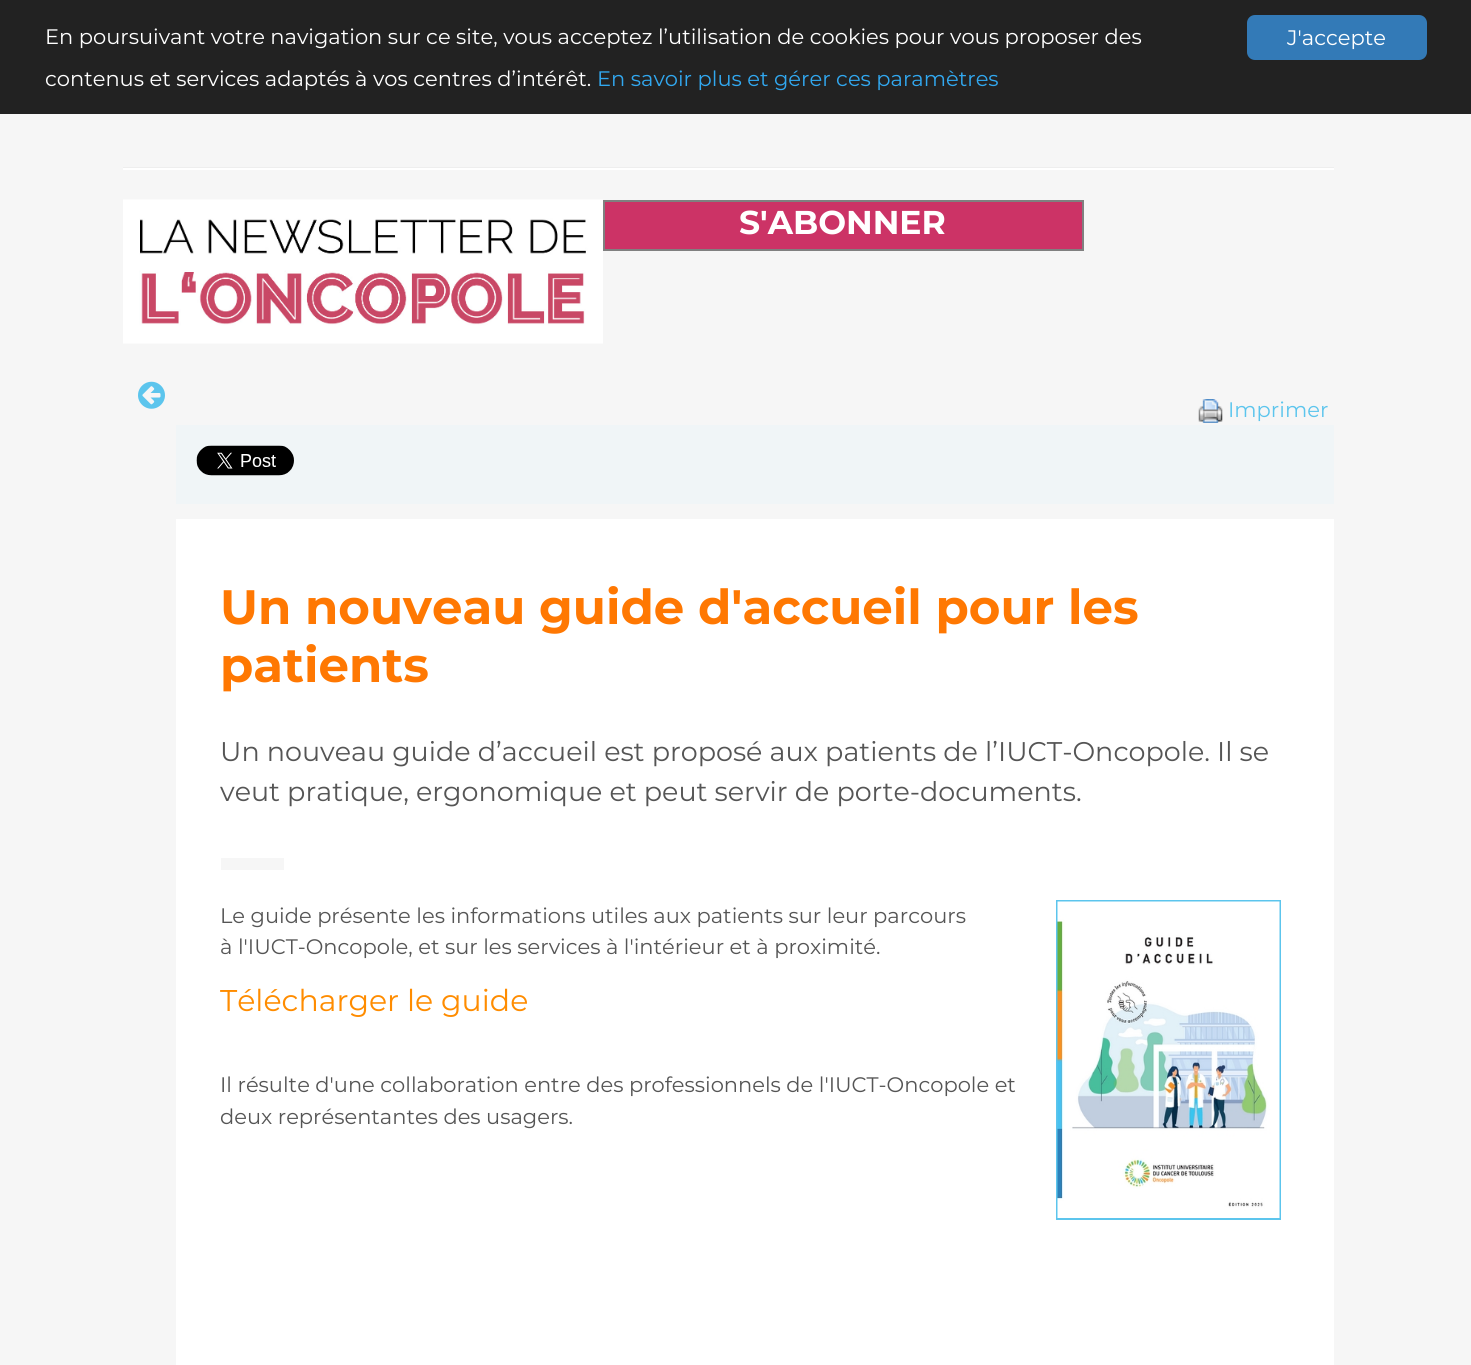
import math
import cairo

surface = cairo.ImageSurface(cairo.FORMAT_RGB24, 1471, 1365)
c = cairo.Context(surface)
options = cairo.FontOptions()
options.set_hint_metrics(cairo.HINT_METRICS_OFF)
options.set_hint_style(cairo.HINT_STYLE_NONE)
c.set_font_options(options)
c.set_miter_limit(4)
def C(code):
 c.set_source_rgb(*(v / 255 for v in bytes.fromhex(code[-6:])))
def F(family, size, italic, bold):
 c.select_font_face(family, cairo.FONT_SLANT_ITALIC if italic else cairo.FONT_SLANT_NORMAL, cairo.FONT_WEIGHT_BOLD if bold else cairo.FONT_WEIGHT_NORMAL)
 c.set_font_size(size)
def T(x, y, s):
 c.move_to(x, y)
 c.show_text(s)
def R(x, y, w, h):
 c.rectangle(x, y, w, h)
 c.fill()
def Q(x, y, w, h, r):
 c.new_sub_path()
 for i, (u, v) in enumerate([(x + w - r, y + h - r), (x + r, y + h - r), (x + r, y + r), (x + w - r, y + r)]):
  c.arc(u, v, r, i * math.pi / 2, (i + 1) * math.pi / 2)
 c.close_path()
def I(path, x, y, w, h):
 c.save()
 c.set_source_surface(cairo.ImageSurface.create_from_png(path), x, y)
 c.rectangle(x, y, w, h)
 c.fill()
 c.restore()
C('f6f6f6')
c.paint()
C('222222')
R(0,0,1471,114)
F('Montserrat',21,0,0)
C('ffffff')
T(45,44,'En poursuivant votre navigation sur ce site, vous acceptez l’utilisation de cookies pour vous proposer des')
T(45,86,'contenus et services adaptés à vos centres d’intérêt.')
C('31a8f0')
T(597,86,'En savoir plus et gérer ces paramètres')
C('337ab7')
Q(1247,15,180,45,8)
c.fill()
C('ffffff')
T(1287,45,'J\'accepte')
C('eeeeee')
R(123,167,1211,1)
C('ffffff')
R(123,168,1211,2)
I('1.png',123,199,480,145)
C('808080')
R(603,200,480,2)
R(1082,200,2,51)
R(603,249,480,2)
R(603,200,2,51)
C('cc3366')
R(605,202,477,47)
F('Montserrat',33,0,1)
C('ffffff')
T(739,234,'S\'ABONNER')
I('2.png',138,381,27,28)
I('3.png',1198,399,25,24)
F('Montserrat',21,0,0)
C('5cc5ed')
T(1228,417,'Imprimer')
C('f0f5f7')
R(176,425,1158,79)
I('4.png',196,445,98,31)
C('ffffff')
R(176,519,1158,846)
F('Montserrat',48.25,0,1)
C('ff7802')
T(220,624,'Un nouveau guide d\'accueil pour les')
T(220,682,'patients')
F('Montserrat',27,0,0)
C('555555')
T(220,761,'Un nouveau guide d’accueil est proposé aux patients de l’IUCT-Oncopole. Il se')
T(220,801,'veut pratique, ergonomique et peut servir de porte-documents.')
C('f6f6f6')
R(221,858,63,12)
F('Montserrat',21,0,0)
C('555555')
T(220,923,'Le guide présente les informations utiles aux patients sur leur parcours')
c.rectangle(1057,901,223,318)
C('5cc5ed')
c.stroke()
I('5.png',1057,901,223,317)
C('555555')
T(220,954,'à l\'IUCT-Oncopole, et sur les services à l\'intérieur et à proximité.')
F('Montserrat',30,0,0)
C('ff8c00')
T(220,1011,'Télécharger le guide')
F('Montserrat',21,0,0)
C('555555')
T(220,1092,'Il résulte d\'une collaboration entre des professionnels de l\'IUCT-Oncopole et')
T(220,1124,'deux représentantes des usagers.')
surface.write_to_png('o.png')
